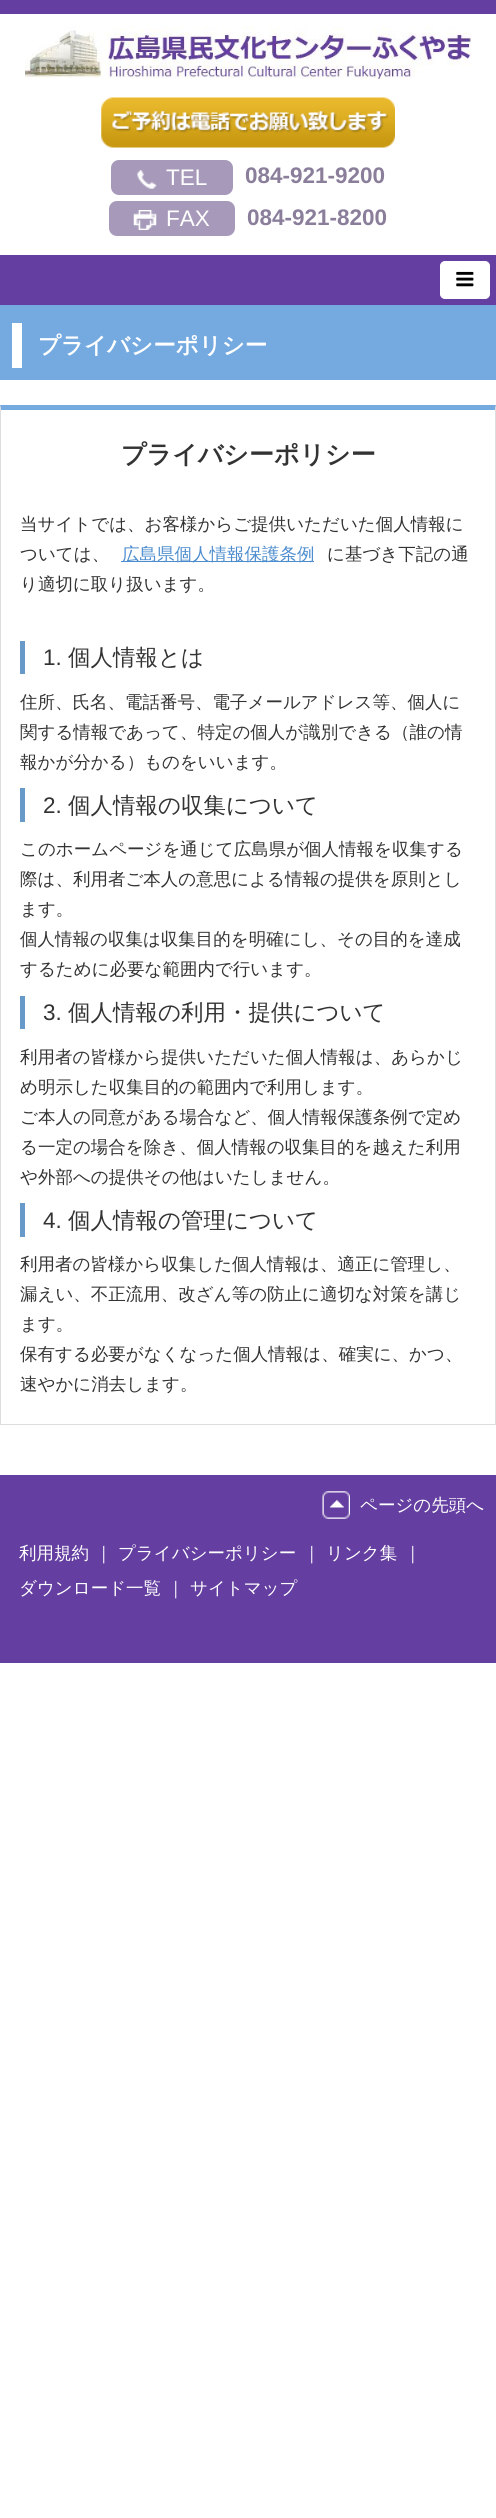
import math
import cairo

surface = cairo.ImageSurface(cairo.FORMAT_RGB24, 496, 2518)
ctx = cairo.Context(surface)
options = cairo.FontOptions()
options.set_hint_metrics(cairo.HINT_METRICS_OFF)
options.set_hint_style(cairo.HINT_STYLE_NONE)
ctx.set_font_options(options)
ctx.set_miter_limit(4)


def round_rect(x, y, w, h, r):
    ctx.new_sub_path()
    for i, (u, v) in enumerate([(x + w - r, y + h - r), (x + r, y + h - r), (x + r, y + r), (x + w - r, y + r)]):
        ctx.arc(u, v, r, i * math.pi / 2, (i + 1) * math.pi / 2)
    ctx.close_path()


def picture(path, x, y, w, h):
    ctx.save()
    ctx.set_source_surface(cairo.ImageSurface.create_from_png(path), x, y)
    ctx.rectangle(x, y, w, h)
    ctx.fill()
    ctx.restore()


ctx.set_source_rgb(1, 1, 1)
ctx.paint()
ctx.set_source_rgb(0.392, 0.243, 0.627)
ctx.rectangle(0, 0, 496, 14)
ctx.fill()
picture("img1.png", 25, 26, 446, 53)
picture("img2.png", 101, 97, 294, 51)
ctx.set_source_rgb(0.651, 0.6, 0.729)
round_rect(111, 160, 122, 35, 8)
ctx.fill()
picture("img3.png", 137, 170, 20, 19)
ctx.select_font_face("Liberation Sans")
ctx.set_font_size(22.5)
ctx.set_source_rgb(1, 1, 1)
ctx.move_to(166, 185)
ctx.show_text("TEL")
ctx.select_font_face("Liberation Sans", cairo.FONT_SLANT_NORMAL, cairo.FONT_WEIGHT_BOLD)
ctx.set_source_rgb(0.541, 0.494, 0.608)
ctx.move_to(245, 183)
ctx.show_text("084-921-9200")
ctx.set_source_rgb(0.651, 0.6, 0.729)
round_rect(109, 201, 126, 35, 8)
ctx.fill()
picture("img4.png", 133, 210, 24, 20)
ctx.select_font_face("Liberation Sans")
ctx.set_source_rgb(1, 1, 1)
ctx.move_to(166, 226)
ctx.show_text("FAX")
ctx.select_font_face("Liberation Sans", cairo.FONT_SLANT_NORMAL, cairo.FONT_WEIGHT_BOLD)
ctx.set_source_rgb(0.541, 0.494, 0.608)
ctx.move_to(247, 225)
ctx.show_text("084-921-8200")
ctx.set_source_rgb(0.392, 0.243, 0.627)
ctx.rectangle(0, 255, 496, 50)
ctx.fill()
ctx.set_source_rgb(1, 1, 1)
round_rect(440.5, 261.5, 49, 37, 4.5)
ctx.fill_preserve()
ctx.set_line_width(1)
ctx.stroke()
picture("img5.png", 456, 271, 18, 16)
ctx.set_source_rgb(0.459, 0.667, 0.878)
ctx.rectangle(0, 305, 496, 75)
ctx.fill()
ctx.set_source_rgb(1, 1, 1)
ctx.rectangle(12, 323, 10, 45)
ctx.fill()
ctx.select_font_face("WenQuanYi Zen Hei", cairo.FONT_SLANT_NORMAL, cairo.FONT_WEIGHT_BOLD)
ctx.move_to(38, 353)
ctx.show_text("プライバシーポリシー")
ctx.set_source_rgb(0.459, 0.667, 0.878)
ctx.new_path()
ctx.move_to(0, 405)
ctx.line_to(496, 405)
ctx.line_to(495, 410)
ctx.line_to(1, 410)
ctx.close_path()
ctx.fill()
ctx.set_source_rgb(0.867, 0.867, 0.867)
ctx.new_path()
ctx.move_to(496, 405)
ctx.line_to(496, 1425)
ctx.line_to(495, 1424)
ctx.line_to(495, 410)
ctx.close_path()
ctx.fill()
ctx.rectangle(0, 1424, 496, 1)
ctx.fill()
ctx.new_path()
ctx.move_to(0, 1425)
ctx.line_to(0, 405)
ctx.line_to(1, 410)
ctx.line_to(1, 1424)
ctx.close_path()
ctx.fill()
ctx.set_font_size(25)
ctx.set_source_rgb(0.2, 0.2, 0.2)
ctx.move_to(121, 463)
ctx.show_text("プライバシーポリシー")
ctx.select_font_face("WenQuanYi Zen Hei Medium")
ctx.set_font_size(17.5)
ctx.move_to(20, 530)
ctx.show_text("当サイトでは、お客様からご提供いただいた個人情報に")
ctx.move_to(20, 560)
ctx.show_text("ついては、")
ctx.set_source_rgb(0.302, 0.553, 0.808)
ctx.rectangle(121, 561, 193, 1)
ctx.fill()
ctx.move_to(122, 560)
ctx.show_text("広島県個人情報保護条例")
ctx.set_source_rgb(0.2, 0.2, 0.2)
ctx.move_to(327, 560)
ctx.show_text("に基づき下記の通")
ctx.move_to(20, 590)
ctx.show_text("り適切に取り扱います。")
ctx.set_source_rgb(0.404, 0.6, 0.788)
ctx.rectangle(20, 641, 5, 33)
ctx.fill()
ctx.select_font_face("Liberation Sans")
ctx.set_font_size(22.5)
ctx.set_source_rgb(0.2, 0.2, 0.2)
ctx.move_to(43, 665)
ctx.show_text("1.")
ctx.select_font_face("WenQuanYi Zen Hei Medium")
ctx.move_to(68, 665)
ctx.show_text("個人情報とは")
ctx.set_font_size(17.5)
ctx.move_to(20, 708)
ctx.show_text("住所、氏名、電話番号、電子メールアドレス等、個人に")
ctx.move_to(20, 738)
ctx.show_text("関する情報であって、特定の個人が識別できる（誰の情")
ctx.move_to(20, 768)
ctx.show_text("報かが分かる）ものをいいます。")
ctx.set_source_rgb(0.404, 0.6, 0.788)
ctx.rectangle(20, 788, 5, 34)
ctx.fill()
ctx.select_font_face("Liberation Sans")
ctx.set_font_size(22.5)
ctx.set_source_rgb(0.2, 0.2, 0.2)
ctx.move_to(43, 813)
ctx.show_text("2.")
ctx.select_font_face("WenQuanYi Zen Hei Medium")
ctx.move_to(68, 813)
ctx.show_text("個人情報の収集について")
ctx.set_font_size(17.5)
ctx.move_to(20, 855)
ctx.show_text("このホームページを通じて広島県が個人情報を収集する")
ctx.move_to(20, 885)
ctx.show_text("際は、利用者ご本人の意思による情報の提供を原則とし")
ctx.move_to(20, 915)
ctx.show_text("ます。")
ctx.move_to(20, 945)
ctx.show_text("個人情報の収集は収集目的を明確にし、その目的を達成")
ctx.move_to(20, 975)
ctx.show_text("するために必要な範囲内で行います。")
ctx.set_source_rgb(0.404, 0.6, 0.788)
ctx.rectangle(20, 996, 5, 33)
ctx.fill()
ctx.select_font_face("Liberation Sans")
ctx.set_font_size(22.5)
ctx.set_source_rgb(0.2, 0.2, 0.2)
ctx.move_to(43, 1020)
ctx.show_text("3.")
ctx.select_font_face("WenQuanYi Zen Hei Medium")
ctx.move_to(68, 1020)
ctx.show_text("個人情報の利用・提供について")
ctx.set_font_size(17.5)
ctx.move_to(20, 1063)
ctx.show_text("利用者の皆様から提供いただいた個人情報は、あらかじ")
ctx.move_to(20, 1093)
ctx.show_text("め明示した収集目的の範囲内で利用します。")
ctx.move_to(20, 1123)
ctx.show_text("ご本人の同意がある場合など、個人情報保護条例で定め")
ctx.move_to(20, 1153)
ctx.show_text("る一定の場合を除き、個人情報の収集目的を越えた利用")
ctx.move_to(20, 1183)
ctx.show_text("や外部への提供その他はいたしません。")
ctx.set_source_rgb(0.404, 0.6, 0.788)
ctx.rectangle(20, 1203, 5, 34)
ctx.fill()
ctx.select_font_face("Liberation Sans")
ctx.set_font_size(22.5)
ctx.set_source_rgb(0.2, 0.2, 0.2)
ctx.move_to(43, 1228)
ctx.show_text("4.")
ctx.select_font_face("WenQuanYi Zen Hei Medium")
ctx.move_to(68, 1228)
ctx.show_text("個人情報の管理について")
ctx.set_font_size(17.5)
ctx.move_to(20, 1270)
ctx.show_text("利用者の皆様から収集した個人情報は、適正に管理し、")
ctx.move_to(20, 1300)
ctx.show_text("漏えい、不正流用、改ざん等の防止に適切な対策を講じ")
ctx.move_to(20, 1330)
ctx.show_text("ます。")
ctx.move_to(20, 1360)
ctx.show_text("保有する必要がなくなった個人情報は、確実に、かつ、")
ctx.move_to(20, 1390)
ctx.show_text("速やかに消去します。")
ctx.set_source_rgb(0.392, 0.243, 0.627)
ctx.rectangle(0, 1475, 496, 188)
ctx.fill()
picture("img6.png", 322, 1491, 28, 28)
ctx.set_source_rgb(1, 1, 1)
ctx.move_to(360, 1511)
ctx.show_text("ページの先頭へ")
ctx.move_to(19, 1559)
ctx.show_text("利用規約")
ctx.move_to(95, 1559)
ctx.show_text("｜")
ctx.move_to(118, 1559)
ctx.show_text("プライバシーポリシー")
ctx.move_to(303, 1559)
ctx.show_text("｜")
ctx.move_to(326, 1559)
ctx.show_text("リンク集")
ctx.move_to(404, 1559)
ctx.show_text("｜")
ctx.move_to(19, 1594)
ctx.show_text("ダウンロード一覧")
ctx.move_to(167, 1594)
ctx.show_text("｜")
ctx.move_to(190, 1594)
ctx.show_text("サイトマップ")
surface.write_to_png("page.png")
